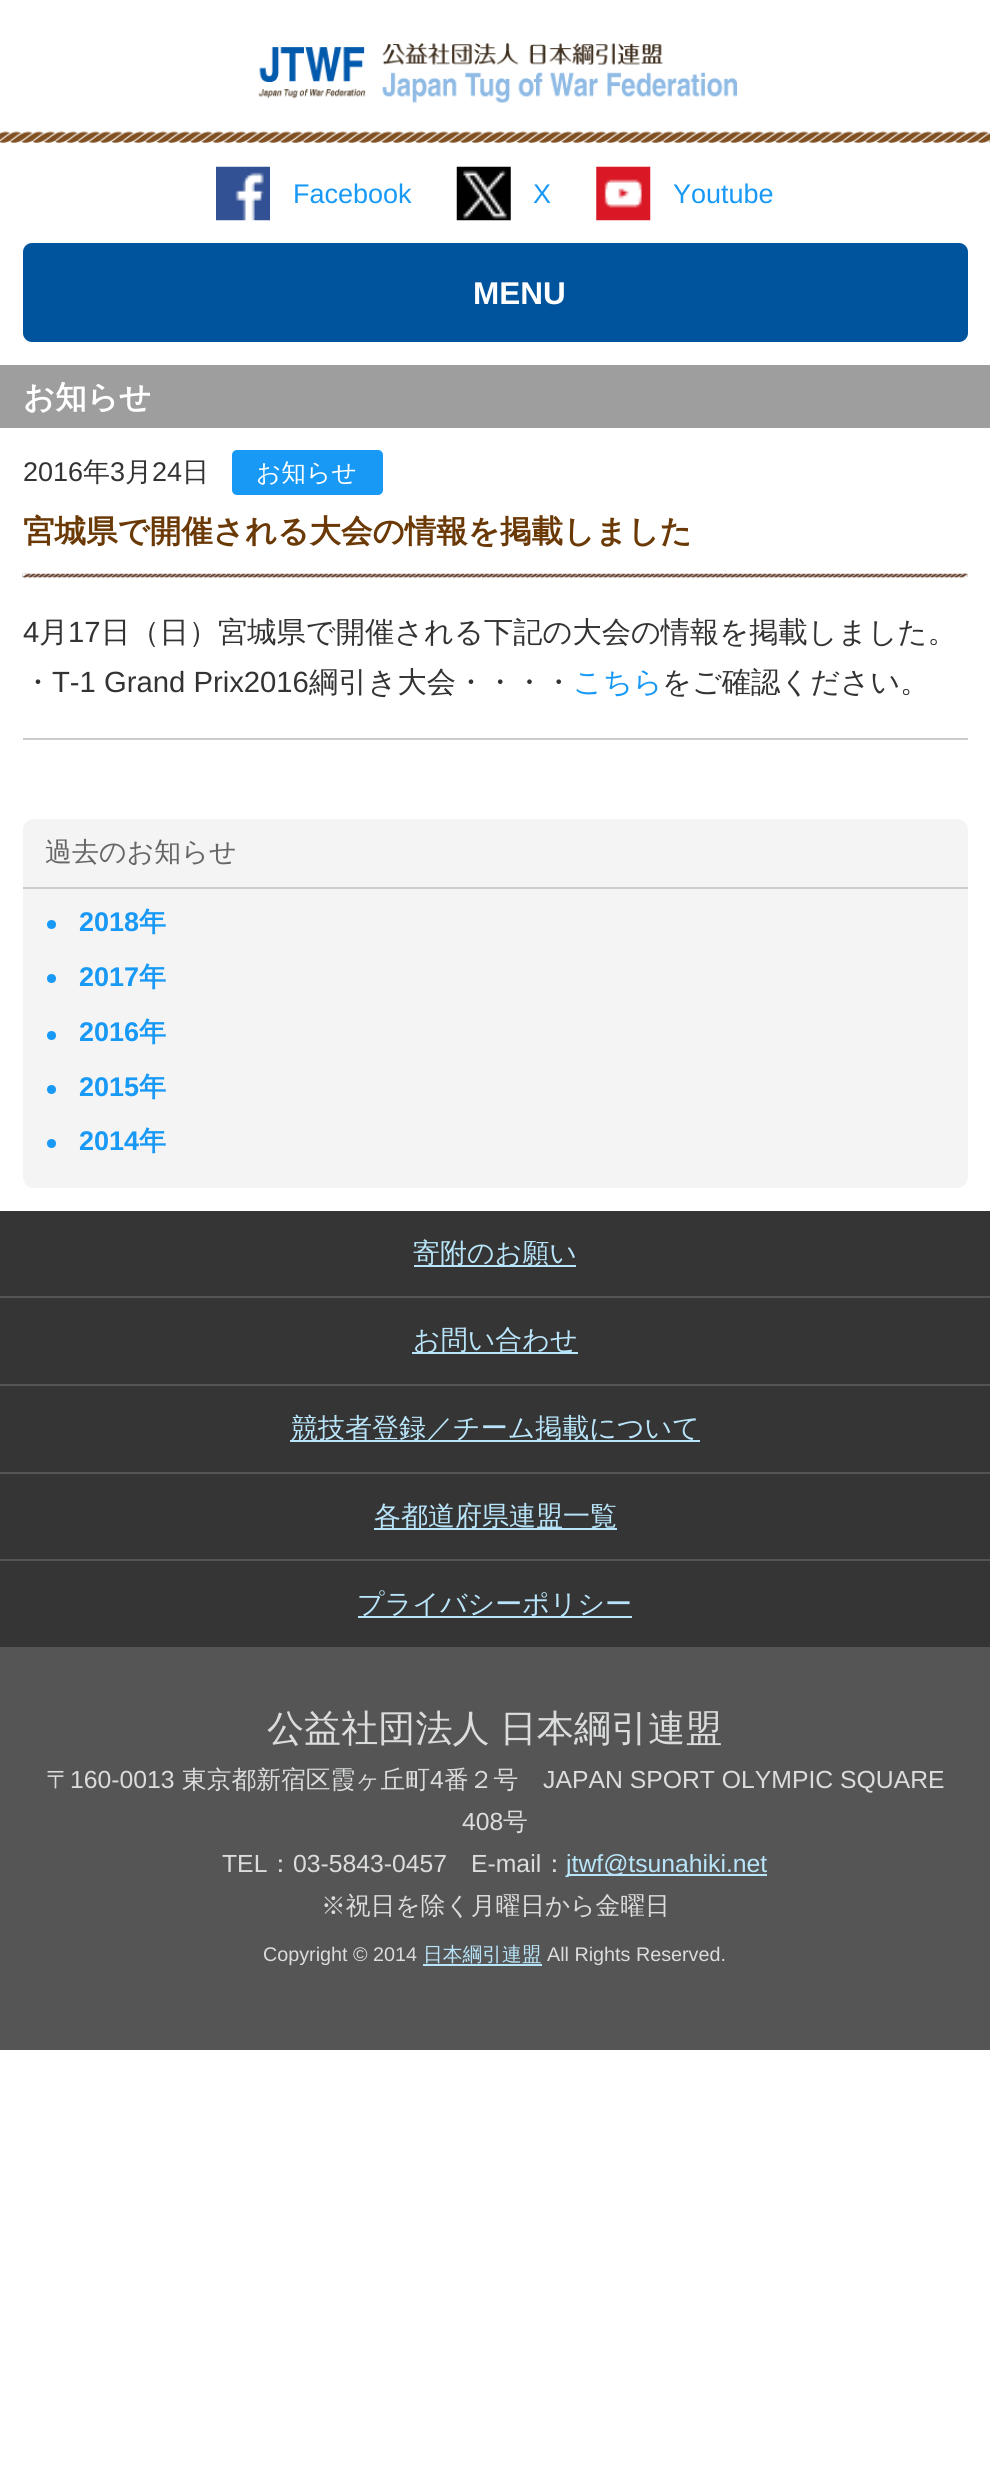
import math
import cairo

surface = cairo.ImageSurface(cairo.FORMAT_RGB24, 990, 2469)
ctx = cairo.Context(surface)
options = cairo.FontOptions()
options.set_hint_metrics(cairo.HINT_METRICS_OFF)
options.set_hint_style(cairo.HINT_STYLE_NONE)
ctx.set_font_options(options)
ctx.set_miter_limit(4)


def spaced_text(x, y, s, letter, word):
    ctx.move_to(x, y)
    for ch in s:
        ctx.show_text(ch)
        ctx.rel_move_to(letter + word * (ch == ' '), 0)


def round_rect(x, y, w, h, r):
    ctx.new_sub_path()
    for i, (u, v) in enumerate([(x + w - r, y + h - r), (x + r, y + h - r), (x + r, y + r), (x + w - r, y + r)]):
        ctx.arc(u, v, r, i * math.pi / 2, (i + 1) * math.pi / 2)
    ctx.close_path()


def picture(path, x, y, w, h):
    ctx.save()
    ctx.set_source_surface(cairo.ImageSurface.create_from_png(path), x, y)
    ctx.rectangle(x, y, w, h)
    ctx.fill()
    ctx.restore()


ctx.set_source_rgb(1, 1, 1)
ctx.paint()
picture("img1.png", 0, 131, 990, 12)
picture("img2.png", 258, 43, 479, 60)
picture("img3.png", 216, 166, 54, 55)
ctx.select_font_face("Liberation Sans")
ctx.set_font_size(27)
ctx.set_source_rgb(0.094, 0.6, 0.961)
ctx.move_to(293, 203)
ctx.show_text("Facebook")
picture("img4.png", 456, 166, 55, 55)
ctx.move_to(533, 203)
ctx.show_text("X")
picture("img5.png", 596, 166, 55, 55)
ctx.move_to(673, 203)
ctx.show_text("Youtube")
ctx.set_source_rgb(0, 0.329, 0.616)
round_rect(23, 243, 945, 99, 9)
ctx.fill()
ctx.select_font_face("Liberation Sans", cairo.FONT_SLANT_NORMAL, cairo.FONT_WEIGHT_BOLD)
ctx.set_font_size(31.5)
ctx.set_source_rgb(1, 1, 1)
ctx.move_to(473, 304)
ctx.show_text("MENU")
ctx.set_source_rgb(0.62, 0.62, 0.624)
ctx.rectangle(0, 365, 990, 63)
ctx.fill()
ctx.select_font_face("WenQuanYi Zen Hei", cairo.FONT_SLANT_NORMAL, cairo.FONT_WEIGHT_BOLD)
ctx.set_source_rgb(1, 1, 1)
ctx.move_to(23, 408)
ctx.show_text("お知らせ")
ctx.select_font_face("Liberation Sans")
ctx.set_font_size(27)
ctx.set_source_rgb(0.2, 0.2, 0.2)
ctx.move_to(23, 481)
ctx.show_text("2016")
ctx.select_font_face("WenQuanYi Zen Hei Medium")
ctx.move_to(83, 481)
ctx.show_text("年")
ctx.select_font_face("Liberation Sans")
ctx.move_to(110, 481)
ctx.show_text("3")
ctx.select_font_face("WenQuanYi Zen Hei Medium")
ctx.move_to(125, 481)
ctx.show_text("月")
ctx.select_font_face("Liberation Sans")
ctx.move_to(152, 481)
ctx.show_text("24")
ctx.select_font_face("WenQuanYi Zen Hei Medium")
ctx.move_to(182, 481)
ctx.show_text("日")
ctx.set_source_rgb(0.094, 0.6, 0.961)
round_rect(232, 450, 151, 45, 5)
ctx.fill()
ctx.set_font_size(24.75)
ctx.set_source_rgb(1, 1, 1)
ctx.move_to(256, 481)
ctx.show_text("お知らせ")
picture("img6.png", 22, 573, 946, 6)
ctx.select_font_face("WenQuanYi Zen Hei", cairo.FONT_SLANT_NORMAL, cairo.FONT_WEIGHT_BOLD)
ctx.set_font_size(31.5)
ctx.set_source_rgb(0.416, 0.224, 0.024)
ctx.move_to(23, 542)
ctx.show_text("宮城県で開催される大会の情報を掲載しました")
picture("img7.png", 22, 573, 5, 6)
picture("img8.png", 963, 573, 5, 5)
ctx.set_source_rgb(0.8, 0.8, 0.8)
ctx.rectangle(23, 738, 945, 2)
ctx.fill()
ctx.select_font_face("Liberation Sans")
ctx.set_font_size(29.25)
ctx.set_source_rgb(0.2, 0.2, 0.2)
ctx.move_to(23, 642)
ctx.show_text("4")
ctx.select_font_face("WenQuanYi Zen Hei Medium")
ctx.move_to(39, 642)
ctx.show_text("月")
ctx.select_font_face("Liberation Sans")
ctx.move_to(68, 642)
ctx.show_text("17")
ctx.select_font_face("WenQuanYi Zen Hei Medium")
ctx.move_to(101, 642)
ctx.show_text("日（日）宮城県で開催される下記の大会の情報を掲載しました。")
ctx.move_to(23, 692)
ctx.show_text("・")
ctx.select_font_face("Liberation Sans")
ctx.move_to(52, 692)
ctx.show_text("T-1 Grand Prix2016")
ctx.select_font_face("WenQuanYi Zen Hei Medium")
ctx.move_to(309, 692)
ctx.show_text("綱引き大会・・・・")
ctx.set_source_rgb(0.094, 0.6, 0.961)
ctx.move_to(573, 692)
ctx.show_text("こちら")
ctx.set_source_rgb(0.2, 0.2, 0.2)
ctx.move_to(662, 692)
ctx.show_text("をご確認ください。")
ctx.set_source_rgb(0.957, 0.957, 0.957)
round_rect(23, 819, 945, 369, 11)
ctx.fill()
ctx.set_source_rgb(0.8, 0.8, 0.8)
ctx.rectangle(23, 887, 945, 2)
ctx.fill()
ctx.set_font_size(27)
ctx.set_source_rgb(0.4, 0.4, 0.4)
ctx.move_to(45, 861)
ctx.show_text("過去のお知らせ")
ctx.set_source_rgb(0.094, 0.6, 0.961)
ctx.new_path()
ctx.arc(51.5, 924.5, 4.5, 0, 2 * math.pi)
ctx.fill()
ctx.select_font_face("Liberation Sans", cairo.FONT_SLANT_NORMAL, cairo.FONT_WEIGHT_BOLD)
ctx.move_to(79, 931)
ctx.show_text("2018")
ctx.select_font_face("WenQuanYi Zen Hei", cairo.FONT_SLANT_NORMAL, cairo.FONT_WEIGHT_BOLD)
ctx.move_to(139, 931)
ctx.show_text("年")
ctx.new_path()
ctx.arc(51.5, 978.5, 4.5, 0, 2 * math.pi)
ctx.fill()
ctx.select_font_face("Liberation Sans", cairo.FONT_SLANT_NORMAL, cairo.FONT_WEIGHT_BOLD)
ctx.move_to(79, 986)
ctx.show_text("2017")
ctx.select_font_face("WenQuanYi Zen Hei", cairo.FONT_SLANT_NORMAL, cairo.FONT_WEIGHT_BOLD)
ctx.move_to(139, 986)
ctx.show_text("年")
ctx.new_path()
ctx.arc(51.5, 1035.5, 4.5, 0, 2 * math.pi)
ctx.fill()
ctx.select_font_face("Liberation Sans", cairo.FONT_SLANT_NORMAL, cairo.FONT_WEIGHT_BOLD)
ctx.move_to(79, 1041)
ctx.show_text("2016")
ctx.select_font_face("WenQuanYi Zen Hei", cairo.FONT_SLANT_NORMAL, cairo.FONT_WEIGHT_BOLD)
ctx.move_to(139, 1041)
ctx.show_text("年")
ctx.new_path()
ctx.arc(51.5, 1089.5, 4.5, 0, 2 * math.pi)
ctx.fill()
ctx.select_font_face("Liberation Sans", cairo.FONT_SLANT_NORMAL, cairo.FONT_WEIGHT_BOLD)
ctx.move_to(79, 1096)
ctx.show_text("2015")
ctx.select_font_face("WenQuanYi Zen Hei", cairo.FONT_SLANT_NORMAL, cairo.FONT_WEIGHT_BOLD)
ctx.move_to(139, 1096)
ctx.show_text("年")
ctx.new_path()
ctx.arc(51.5, 1143.5, 4.5, 0, 2 * math.pi)
ctx.fill()
ctx.select_font_face("Liberation Sans", cairo.FONT_SLANT_NORMAL, cairo.FONT_WEIGHT_BOLD)
ctx.move_to(79, 1150)
ctx.show_text("2014")
ctx.select_font_face("WenQuanYi Zen Hei", cairo.FONT_SLANT_NORMAL, cairo.FONT_WEIGHT_BOLD)
ctx.move_to(139, 1150)
ctx.show_text("年")
ctx.set_source_rgb(0.208, 0.208, 0.208)
ctx.rectangle(0, 1211, 990, 436)
ctx.fill()
ctx.set_source_rgb(0.333, 0.333, 0.333)
ctx.rectangle(0, 1296, 990, 2)
ctx.fill()
ctx.set_source_rgb(0.725, 0.898, 0.98)
ctx.rectangle(414, 1265, 162, 2)
ctx.fill()
ctx.select_font_face("WenQuanYi Zen Hei Medium")
ctx.move_to(413, 1262)
ctx.show_text("寄附のお願い")
ctx.set_source_rgb(0.333, 0.333, 0.333)
ctx.rectangle(0, 1384, 990, 2)
ctx.fill()
ctx.set_source_rgb(0.725, 0.898, 0.98)
ctx.rectangle(412, 1352, 166, 2)
ctx.fill()
ctx.move_to(413, 1349)
ctx.show_text("お問い合わせ")
ctx.set_source_rgb(0.333, 0.333, 0.333)
ctx.rectangle(0, 1472, 990, 2)
ctx.fill()
ctx.set_source_rgb(0.725, 0.898, 0.98)
ctx.rectangle(290, 1440, 410, 2)
ctx.fill()
ctx.move_to(291, 1437)
ctx.show_text("競技者登録／チーム掲載について")
ctx.set_source_rgb(0.333, 0.333, 0.333)
ctx.rectangle(0, 1559, 990, 2)
ctx.fill()
ctx.set_source_rgb(0.725, 0.898, 0.98)
ctx.rectangle(374, 1528, 243, 2)
ctx.fill()
ctx.move_to(374, 1525)
ctx.show_text("各都道府県連盟一覧")
ctx.rectangle(358, 1616, 274, 2)
ctx.fill()
ctx.move_to(357, 1613)
ctx.show_text("プライバシーポリシー")
ctx.set_source_rgb(0.333, 0.333, 0.333)
ctx.rectangle(0, 1647, 990, 403)
ctx.fill()
ctx.set_font_size(37.1)
ctx.set_source_rgb(0.859, 0.863, 0.863)
spaced_text(267, 1741, "公益社団法人 日本綱引連盟", 0, -1)
ctx.set_font_size(24.75)
ctx.move_to(46, 1788)
ctx.show_text("〒")
ctx.select_font_face("Liberation Sans")
ctx.move_to(70, 1788)
ctx.show_text("160-0013")
ctx.select_font_face("WenQuanYi Zen Hei Medium")
ctx.move_to(182, 1788)
ctx.show_text("東京都新宿区霞ヶ丘町")
ctx.select_font_face("Liberation Sans")
ctx.move_to(430, 1788)
ctx.show_text("4")
ctx.select_font_face("WenQuanYi Zen Hei Medium")
ctx.move_to(444, 1788)
ctx.show_text("番２号")
ctx.select_font_face("Liberation Sans")
ctx.move_to(543, 1788)
ctx.show_text("JAPAN SPORT OLYMPIC SQUARE")
ctx.move_to(462, 1830)
ctx.show_text("408")
ctx.select_font_face("WenQuanYi Zen Hei Medium")
ctx.move_to(503, 1830)
ctx.show_text("号")
ctx.select_font_face("Liberation Sans")
ctx.move_to(222, 1872)
ctx.show_text("TEL")
ctx.select_font_face("WenQuanYi Zen Hei Medium")
ctx.move_to(268, 1872)
ctx.show_text("：")
ctx.select_font_face("Liberation Sans")
ctx.move_to(293, 1872)
ctx.show_text("03-5843-0457")
ctx.move_to(471, 1872)
ctx.show_text("E-mail")
ctx.select_font_face("WenQuanYi Zen Hei Medium")
ctx.move_to(542, 1872)
ctx.show_text("：")
ctx.set_source_rgb(0.725, 0.898, 0.98)
ctx.rectangle(567, 1874, 200, 2)
ctx.fill()
ctx.select_font_face("Liberation Sans")
ctx.move_to(566, 1872)
ctx.show_text("jtwf@tsunahiki.net")
ctx.select_font_face("WenQuanYi Zen Hei Medium")
ctx.set_source_rgb(0.859, 0.863, 0.863)
ctx.move_to(321, 1914)
ctx.show_text("※祝日を除く月曜日から金曜日")
ctx.select_font_face("Liberation Sans")
ctx.set_font_size(19.75)
ctx.move_to(263, 1961)
ctx.show_text("Copyright © 2014")
ctx.select_font_face("WenQuanYi Zen Hei Medium")
ctx.set_source_rgb(0.725, 0.898, 0.98)
ctx.move_to(423, 1961)
ctx.show_text("日本綱引連盟")
ctx.rectangle(423, 1964, 119, 2)
ctx.fill()
ctx.select_font_face("Liberation Sans")
ctx.set_source_rgb(0.859, 0.863, 0.863)
ctx.move_to(547, 1961)
ctx.show_text("All Rights Reserved.")
surface.write_to_png("page.png")
